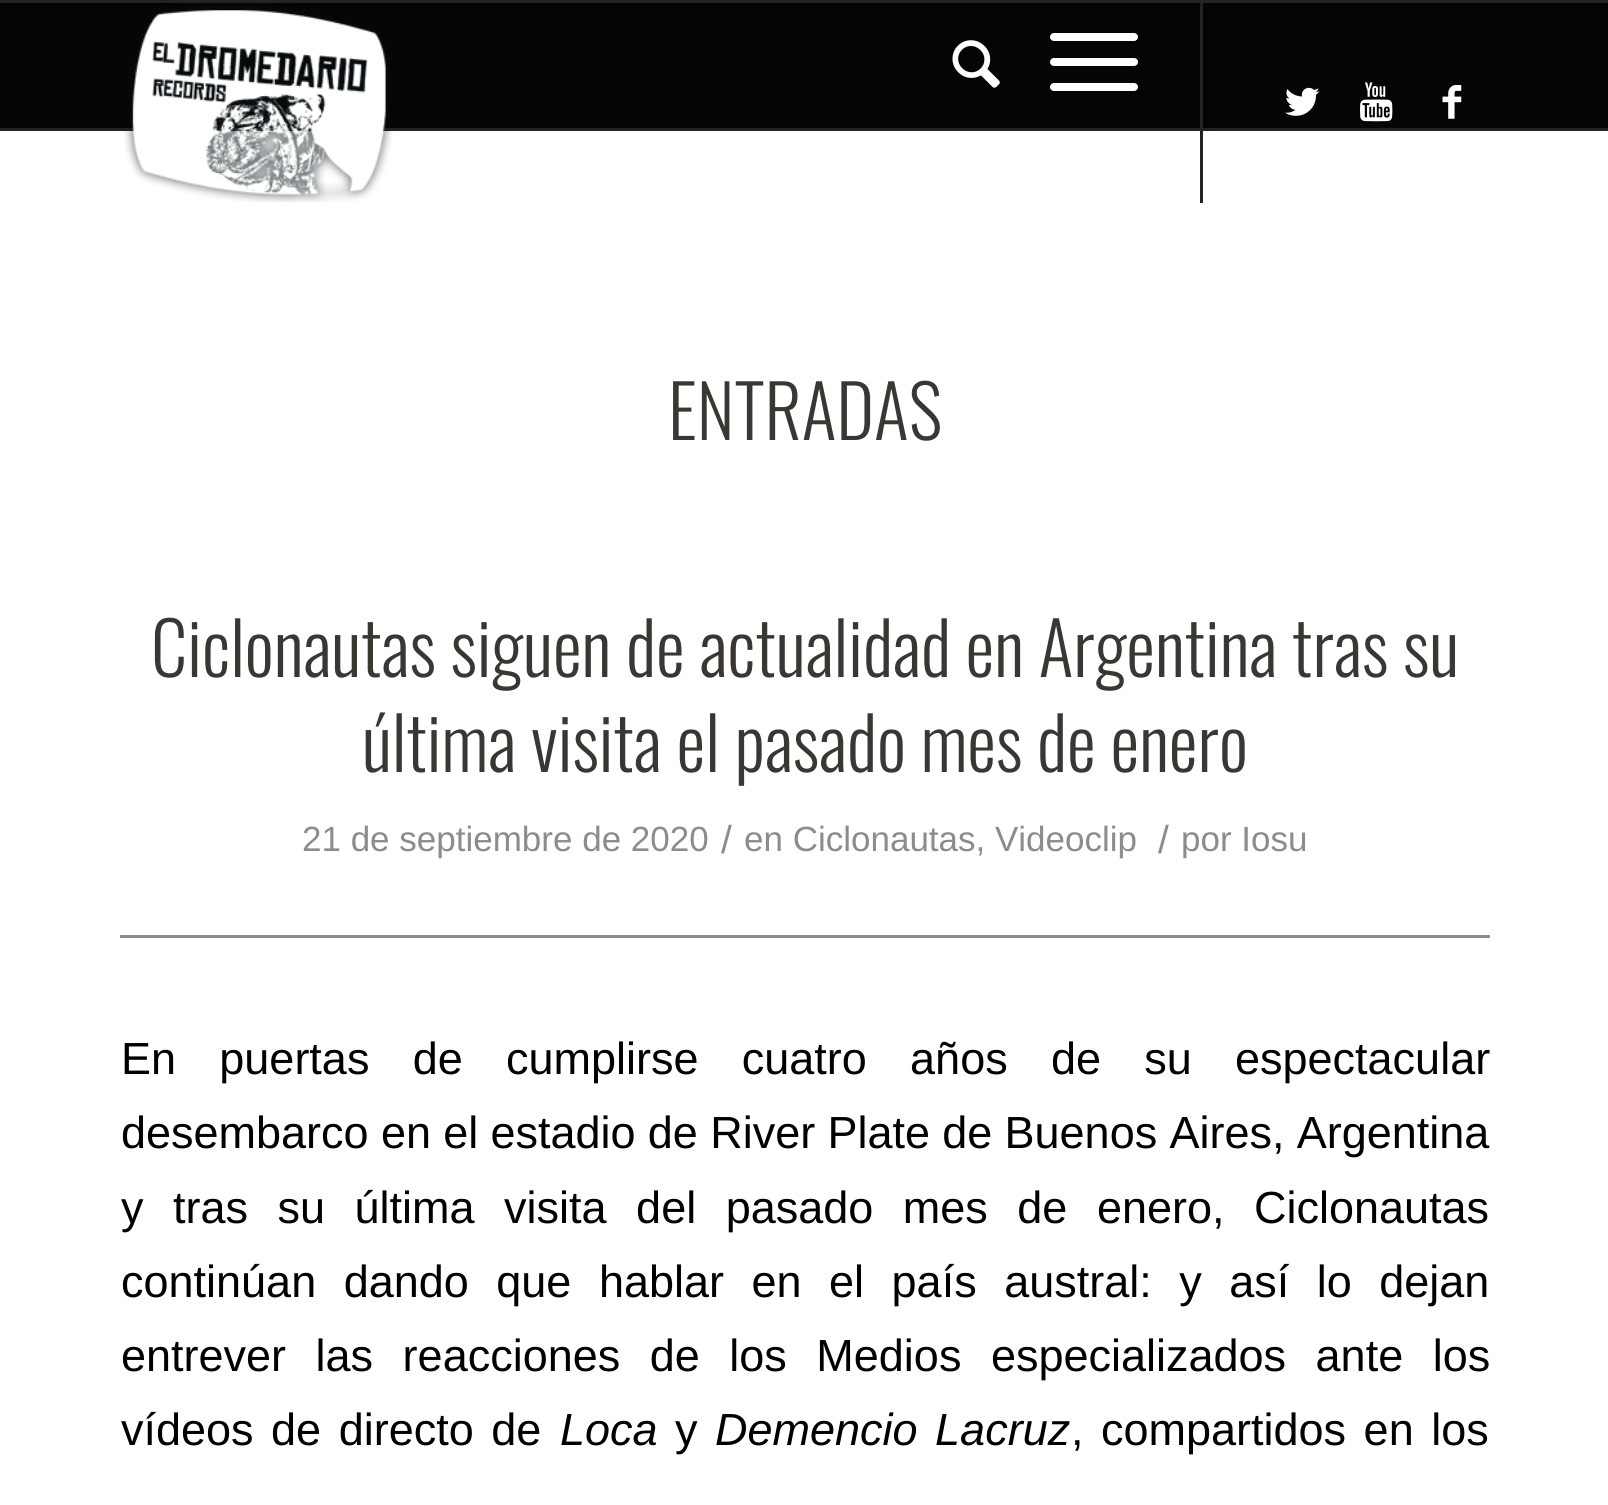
import math
import cairo

surface = cairo.ImageSurface(cairo.FORMAT_RGB24, 1608, 1505)
ctx = cairo.Context(surface)
options = cairo.FontOptions()
options.set_hint_metrics(cairo.HINT_METRICS_OFF)
options.set_hint_style(cairo.HINT_STYLE_NONE)
ctx.set_font_options(options)
ctx.set_miter_limit(4)


def spaced_text(x, y, s, letter, word):
    ctx.move_to(x, y)
    for ch in s:
        ctx.show_text(ch)
        ctx.rel_move_to(letter + word * (ch == ' '), 0)


def round_rect(x, y, w, h, r):
    ctx.new_sub_path()
    for i, (u, v) in enumerate([(x + w - r, y + h - r), (x + r, y + h - r), (x + r, y + r), (x + w - r, y + r)]):
        ctx.arc(u, v, r, i * math.pi / 2, (i + 1) * math.pi / 2)
    ctx.close_path()


def picture(path, x, y, w, h):
    ctx.save()
    ctx.set_source_surface(cairo.ImageSurface.create_from_png(path), x, y)
    ctx.rectangle(x, y, w, h)
    ctx.fill()
    ctx.restore()


ctx.set_source_rgb(1, 1, 1)
ctx.paint()
ctx.set_source_rgb(0.141, 0.137, 0.125)
ctx.rectangle(0, 0, 1608, 3)
ctx.fill()
ctx.rectangle(0, 128, 1608, 3)
ctx.fill()
ctx.set_source_rgb(0.02, 0.02, 0.02)
ctx.rectangle(0, 3, 1608, 125)
ctx.fill()
picture("img1.png", 124, 7, 269, 195)
ctx.set_source_rgb(0.141, 0.137, 0.125)
ctx.rectangle(1200, 3, 3, 200)
ctx.fill()
picture("img2.png", 952, 40, 48, 48)
ctx.set_source_rgb(1, 1, 1)
round_rect(1050, 58, 88, 8, 4)
ctx.fill()
round_rect(1050, 33, 88, 8, 4)
ctx.fill()
round_rect(1050, 83, 88, 8, 4)
ctx.fill()
picture("img3.png", 1285, 87, 35, 29)
picture("img4.png", 1360, 82, 33, 40)
picture("img5.png", 1442, 85, 20, 34)
ctx.select_font_face("Oswald Light")
ctx.set_font_size(72.5)
ctx.set_source_rgb(0.227, 0.216, 0.2)
ctx.move_to(668, 440)
ctx.show_text("ENTRADAS")
ctx.set_source_rgb(0.557, 0.541, 0.525)
ctx.rectangle(120, 935, 1370, 3)
ctx.fill()
ctx.set_source_rgb(0.227, 0.216, 0.2)
ctx.move_to(151, 677)
ctx.show_text("Ciclonautas siguen de actualidad en Argentina tras su")
ctx.move_to(362, 772)
ctx.show_text("última visita el pasado mes de enero")
ctx.select_font_face("Liberation Sans")
ctx.set_font_size(35)
ctx.set_source_rgb(0.549, 0.549, 0.549)
ctx.move_to(302, 851)
ctx.show_text("21 de septiembre de 2020")
ctx.set_font_size(39)
ctx.move_to(721, 853)
ctx.show_text("/")
ctx.set_font_size(35)
ctx.move_to(744, 851)
ctx.show_text("en Ciclonautas, Videoclip")
ctx.set_font_size(39)
ctx.move_to(1158, 853)
ctx.show_text("/")
ctx.set_font_size(35)
ctx.move_to(1181, 851)
ctx.show_text("por Iosu")
ctx.set_font_size(45)
ctx.set_source_rgb(0, 0, 0)
spaced_text(121, 1074, "En puertas de cumplirse cuatro años de su espectacular", 0, 30.75)
spaced_text(121, 1148, "desembarco en el estadio de River Plate de Buenos Aires, Argentina", 0, -0.25)
spaced_text(121, 1223, "y tras su última visita del pasado mes de enero, Ciclonautas", 0, 17)
spaced_text(121, 1297, "continúan dando que hablar en el país austral: y así lo dejan", 0, 15)
spaced_text(121, 1371, "entrever las reacciones de los Medios especializados ante los", 0, 17)
spaced_text(121, 1445, "vídeos de directo de", 0, 5)
ctx.select_font_face("Liberation Sans", cairo.FONT_SLANT_ITALIC)
ctx.move_to(560, 1445)
ctx.show_text("Loca")
ctx.select_font_face("Liberation Sans")
ctx.move_to(675, 1445)
ctx.show_text("y")
ctx.select_font_face("Liberation Sans", cairo.FONT_SLANT_ITALIC)
spaced_text(715, 1445, "Demencio Lacruz", 0, 5)
ctx.select_font_face("Liberation Sans")
spaced_text(1071, 1445, ", compartidos en los", 0, 5)
surface.write_to_png("page.png")
